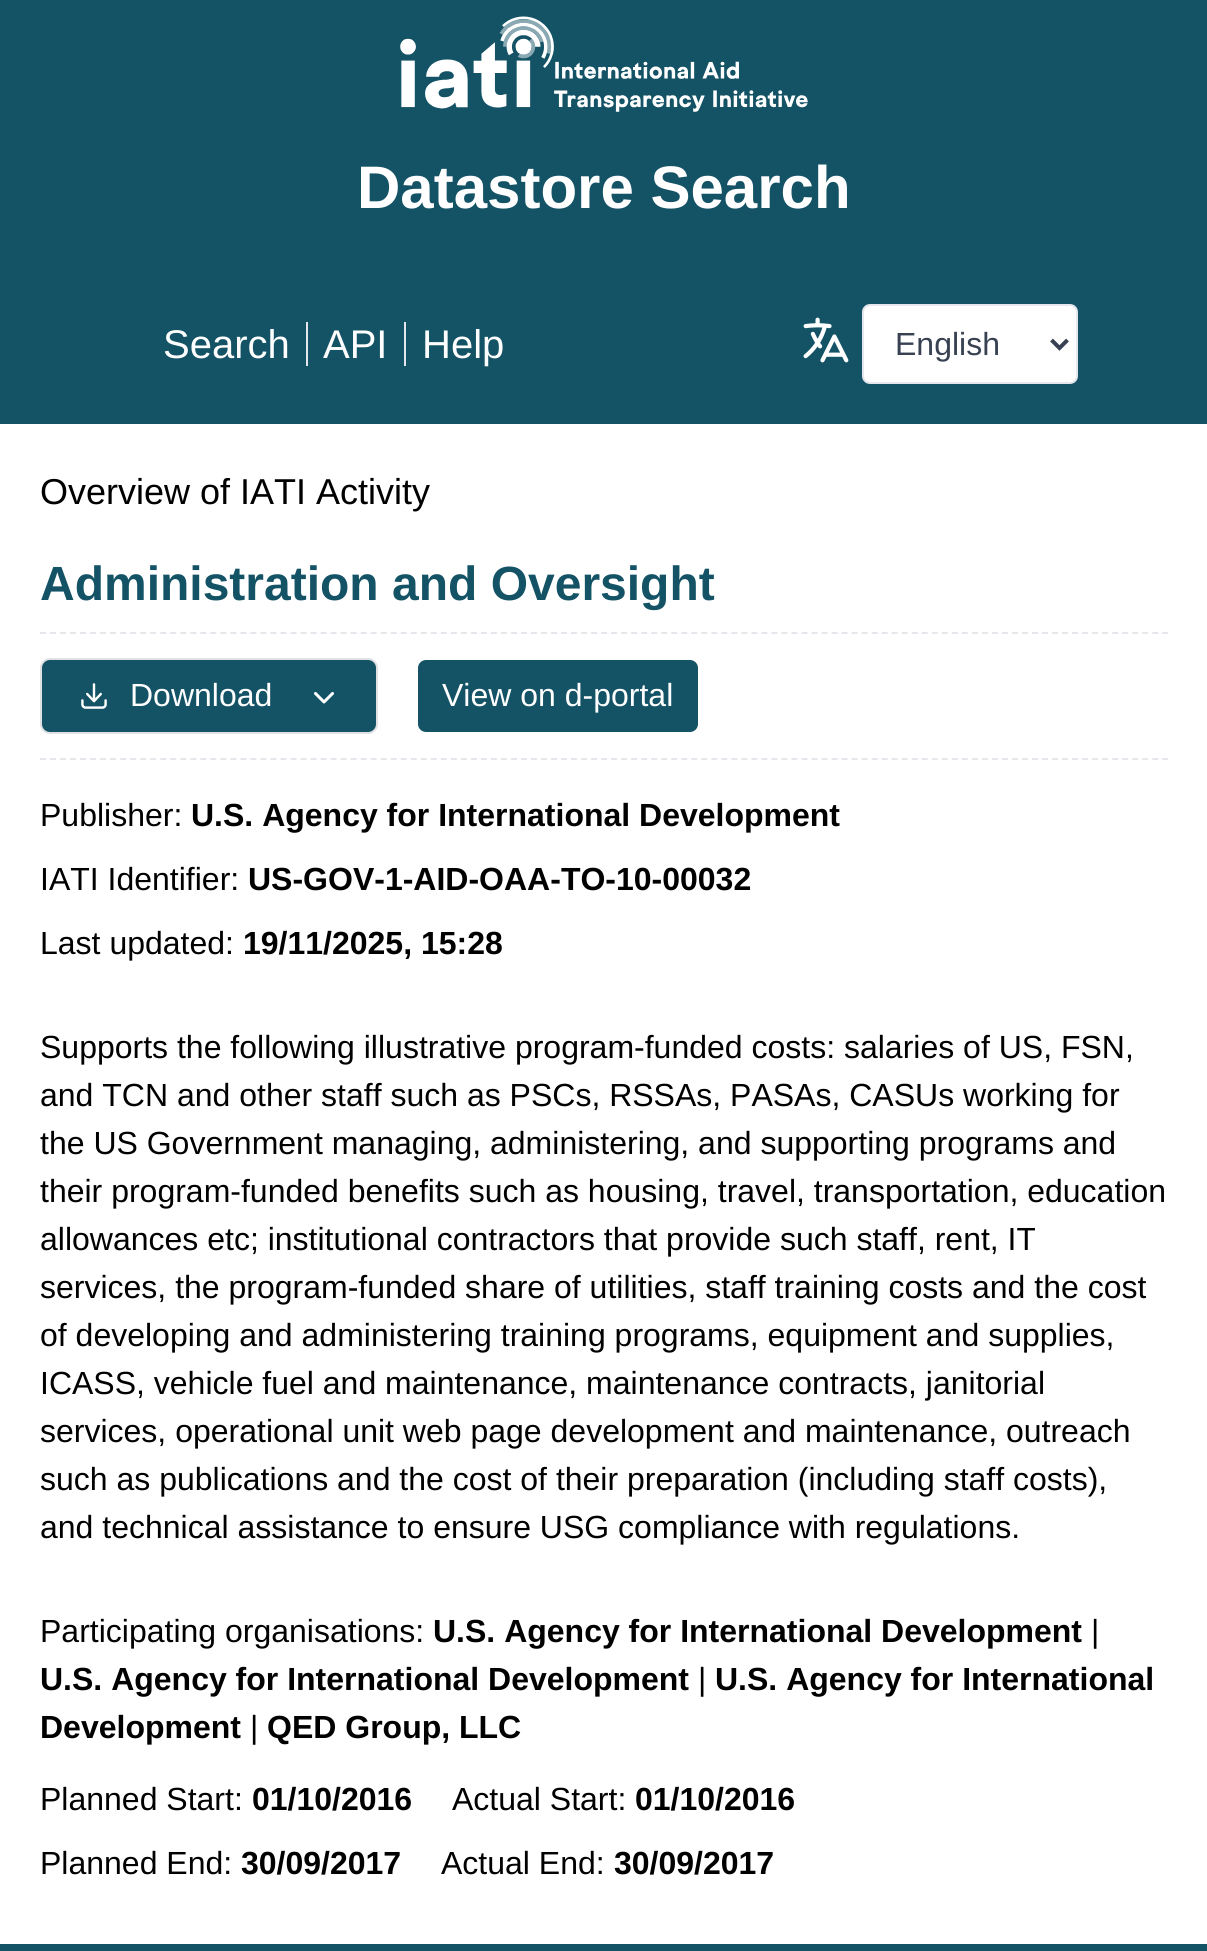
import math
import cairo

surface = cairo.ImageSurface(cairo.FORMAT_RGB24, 1207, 1951)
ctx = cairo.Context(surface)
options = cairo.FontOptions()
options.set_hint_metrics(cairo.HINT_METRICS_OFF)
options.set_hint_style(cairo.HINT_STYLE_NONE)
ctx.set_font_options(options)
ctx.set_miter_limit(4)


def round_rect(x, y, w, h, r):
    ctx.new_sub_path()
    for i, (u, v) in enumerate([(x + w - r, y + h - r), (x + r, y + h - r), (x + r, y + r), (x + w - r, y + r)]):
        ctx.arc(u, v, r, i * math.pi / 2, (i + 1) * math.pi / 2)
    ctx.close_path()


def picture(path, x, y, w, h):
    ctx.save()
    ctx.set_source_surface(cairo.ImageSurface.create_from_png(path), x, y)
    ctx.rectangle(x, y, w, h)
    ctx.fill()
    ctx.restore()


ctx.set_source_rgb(1, 1, 1)
ctx.paint()
ctx.set_source_rgb(0.082, 0.325, 0.4)
ctx.rectangle(0, 0, 1207, 424)
ctx.fill()
picture("img1.png", 400, 16, 408, 96)
ctx.select_font_face("Liberation Sans", cairo.FONT_SLANT_NORMAL, cairo.FONT_WEIGHT_BOLD)
ctx.set_font_size(60)
ctx.set_source_rgb(1, 1, 1)
ctx.move_to(357, 208)
ctx.show_text("Datastore Search")
ctx.select_font_face("Liberation Sans")
ctx.set_font_size(40)
ctx.move_to(163, 358)
ctx.show_text("Search")
ctx.move_to(323, 358)
ctx.show_text("API")
ctx.set_source_rgb(0.898, 0.906, 0.922)
ctx.rectangle(306, 322, 2, 44)
ctx.fill()
ctx.set_source_rgb(1, 1, 1)
ctx.move_to(422, 358)
ctx.show_text("Help")
ctx.set_source_rgb(0.898, 0.906, 0.922)
ctx.rectangle(404, 322, 2, 44)
ctx.fill()
picture("img2.png", 803, 317, 46, 46)
ctx.set_source_rgb(1, 1, 1)
round_rect(863, 305, 214, 78, 7)
ctx.fill_preserve()
ctx.set_source_rgb(0.898, 0.906, 0.922)
ctx.stroke()
ctx.new_path()
ctx.move_to(1051.5, 340)
ctx.line_to(1059.5, 348)
ctx.line_to(1067.5, 340)
ctx.set_source_rgb(0.216, 0.255, 0.318)
ctx.set_line_width(4)
ctx.stroke()
ctx.set_font_size(32)
ctx.move_to(895, 355)
ctx.show_text("English")
ctx.set_font_size(36)
ctx.set_source_rgb(0, 0, 0)
ctx.move_to(40, 504)
ctx.show_text("Overview of IATI Activity")
ctx.new_path()
ctx.move_to(40, 633)
ctx.line_to(1168, 633)
ctx.set_source_rgb(0.898, 0.906, 0.922)
ctx.set_line_width(2)
ctx.set_dash([6, 4.02])
ctx.stroke()
ctx.select_font_face("Liberation Sans", cairo.FONT_SLANT_NORMAL, cairo.FONT_WEIGHT_BOLD)
ctx.set_font_size(48)
ctx.set_source_rgb(0.082, 0.325, 0.4)
ctx.move_to(40, 600)
ctx.show_text("Administration and Oversight")
ctx.new_path()
ctx.move_to(40, 759)
ctx.line_to(1168, 759)
ctx.set_source_rgb(0.898, 0.906, 0.922)
ctx.stroke()
ctx.set_source_rgb(0.082, 0.325, 0.4)
round_rect(41, 659, 336, 74, 9)
ctx.fill_preserve()
ctx.set_source_rgb(0.878, 0.882, 0.886)
ctx.set_dash([])
ctx.stroke()
picture("img3.png", 81, 683, 26, 26)
ctx.select_font_face("Liberation Sans")
ctx.set_font_size(32)
ctx.set_source_rgb(1, 1, 1)
ctx.move_to(130, 706)
ctx.show_text("Download")
picture("img4.png", 314, 692, 20, 12)
ctx.set_source_rgb(0.082, 0.325, 0.4)
round_rect(418, 660, 280, 72, 8)
ctx.fill()
ctx.set_source_rgb(1, 1, 1)
ctx.move_to(442, 706)
ctx.show_text("View on d-portal")
ctx.set_source_rgb(0, 0, 0)
ctx.move_to(40, 826)
ctx.show_text("Publisher:")
ctx.select_font_face("Liberation Sans", cairo.FONT_SLANT_NORMAL, cairo.FONT_WEIGHT_BOLD)
ctx.move_to(191, 826)
ctx.show_text("U.S. Agency for International Development")
ctx.select_font_face("Liberation Sans")
ctx.move_to(40, 890)
ctx.show_text("IATI Identifier:")
ctx.select_font_face("Liberation Sans", cairo.FONT_SLANT_NORMAL, cairo.FONT_WEIGHT_BOLD)
ctx.move_to(248, 890)
ctx.show_text("US-GOV-1-AID-OAA-TO-10-00032")
ctx.select_font_face("Liberation Sans")
ctx.move_to(40, 954)
ctx.show_text("Last updated:")
ctx.select_font_face("Liberation Sans", cairo.FONT_SLANT_NORMAL, cairo.FONT_WEIGHT_BOLD)
ctx.move_to(243, 954)
ctx.show_text("19/11/2025, 15:28")
ctx.select_font_face("Liberation Sans")
ctx.move_to(40, 1058)
ctx.show_text("Supports the following illustrative program-funded costs: salaries of US, FSN,")
ctx.move_to(40, 1106)
ctx.show_text("and TCN and other staff such as PSCs, RSSAs, PASAs, CASUs working for")
ctx.move_to(40, 1154)
ctx.show_text("the US Government managing, administering, and supporting programs and")
ctx.move_to(40, 1202)
ctx.show_text("their program-funded benefits such as housing, travel, transportation, education")
ctx.move_to(40, 1250)
ctx.show_text("allowances etc; institutional contractors that provide such staff, rent, IT")
ctx.move_to(40, 1298)
ctx.show_text("services, the program-funded share of utilities, staff training costs and the cost")
ctx.move_to(40, 1346)
ctx.show_text("of developing and administering training programs, equipment and supplies,")
ctx.move_to(40, 1394)
ctx.show_text("ICASS, vehicle fuel and maintenance, maintenance contracts, janitorial")
ctx.move_to(40, 1442)
ctx.show_text("services, operational unit web page development and maintenance, outreach")
ctx.move_to(40, 1490)
ctx.show_text("such as publications and the cost of their preparation (including staff costs),")
ctx.move_to(40, 1538)
ctx.show_text("and technical assistance to ensure USG compliance with regulations.")
ctx.move_to(40, 1642)
ctx.show_text("Participating organisations:")
ctx.select_font_face("Liberation Sans", cairo.FONT_SLANT_NORMAL, cairo.FONT_WEIGHT_BOLD)
ctx.move_to(433, 1642)
ctx.show_text("U.S. Agency for International Development")
ctx.select_font_face("Liberation Sans")
ctx.move_to(1091, 1642)
ctx.show_text("|")
ctx.select_font_face("Liberation Sans", cairo.FONT_SLANT_NORMAL, cairo.FONT_WEIGHT_BOLD)
ctx.move_to(40, 1690)
ctx.show_text("U.S. Agency for International Development")
ctx.select_font_face("Liberation Sans")
ctx.move_to(698, 1690)
ctx.show_text("|")
ctx.select_font_face("Liberation Sans", cairo.FONT_SLANT_NORMAL, cairo.FONT_WEIGHT_BOLD)
ctx.move_to(715, 1690)
ctx.show_text("U.S. Agency for International")
ctx.move_to(40, 1738)
ctx.show_text("Development")
ctx.select_font_face("Liberation Sans")
ctx.move_to(250, 1738)
ctx.show_text("|")
ctx.select_font_face("Liberation Sans", cairo.FONT_SLANT_NORMAL, cairo.FONT_WEIGHT_BOLD)
ctx.move_to(267, 1738)
ctx.show_text("QED Group, LLC")
ctx.select_font_face("Liberation Sans")
ctx.move_to(40, 1810)
ctx.show_text("Planned Start:")
ctx.select_font_face("Liberation Sans", cairo.FONT_SLANT_NORMAL, cairo.FONT_WEIGHT_BOLD)
ctx.move_to(252, 1810)
ctx.show_text("01/10/2016")
ctx.select_font_face("Liberation Sans")
ctx.move_to(452, 1810)
ctx.show_text("Actual Start:")
ctx.select_font_face("Liberation Sans", cairo.FONT_SLANT_NORMAL, cairo.FONT_WEIGHT_BOLD)
ctx.move_to(635, 1810)
ctx.show_text("01/10/2016")
ctx.select_font_face("Liberation Sans")
ctx.move_to(40, 1874)
ctx.show_text("Planned End:")
ctx.select_font_face("Liberation Sans", cairo.FONT_SLANT_NORMAL, cairo.FONT_WEIGHT_BOLD)
ctx.move_to(241, 1874)
ctx.show_text("30/09/2017")
ctx.select_font_face("Liberation Sans")
ctx.move_to(441, 1874)
ctx.show_text("Actual End:")
ctx.select_font_face("Liberation Sans", cairo.FONT_SLANT_NORMAL, cairo.FONT_WEIGHT_BOLD)
ctx.move_to(614, 1874)
ctx.show_text("30/09/2017")
ctx.set_source_rgb(0.082, 0.325, 0.4)
ctx.rectangle(0, 1944, 1207, 7)
ctx.fill()
surface.write_to_png("page.png")
